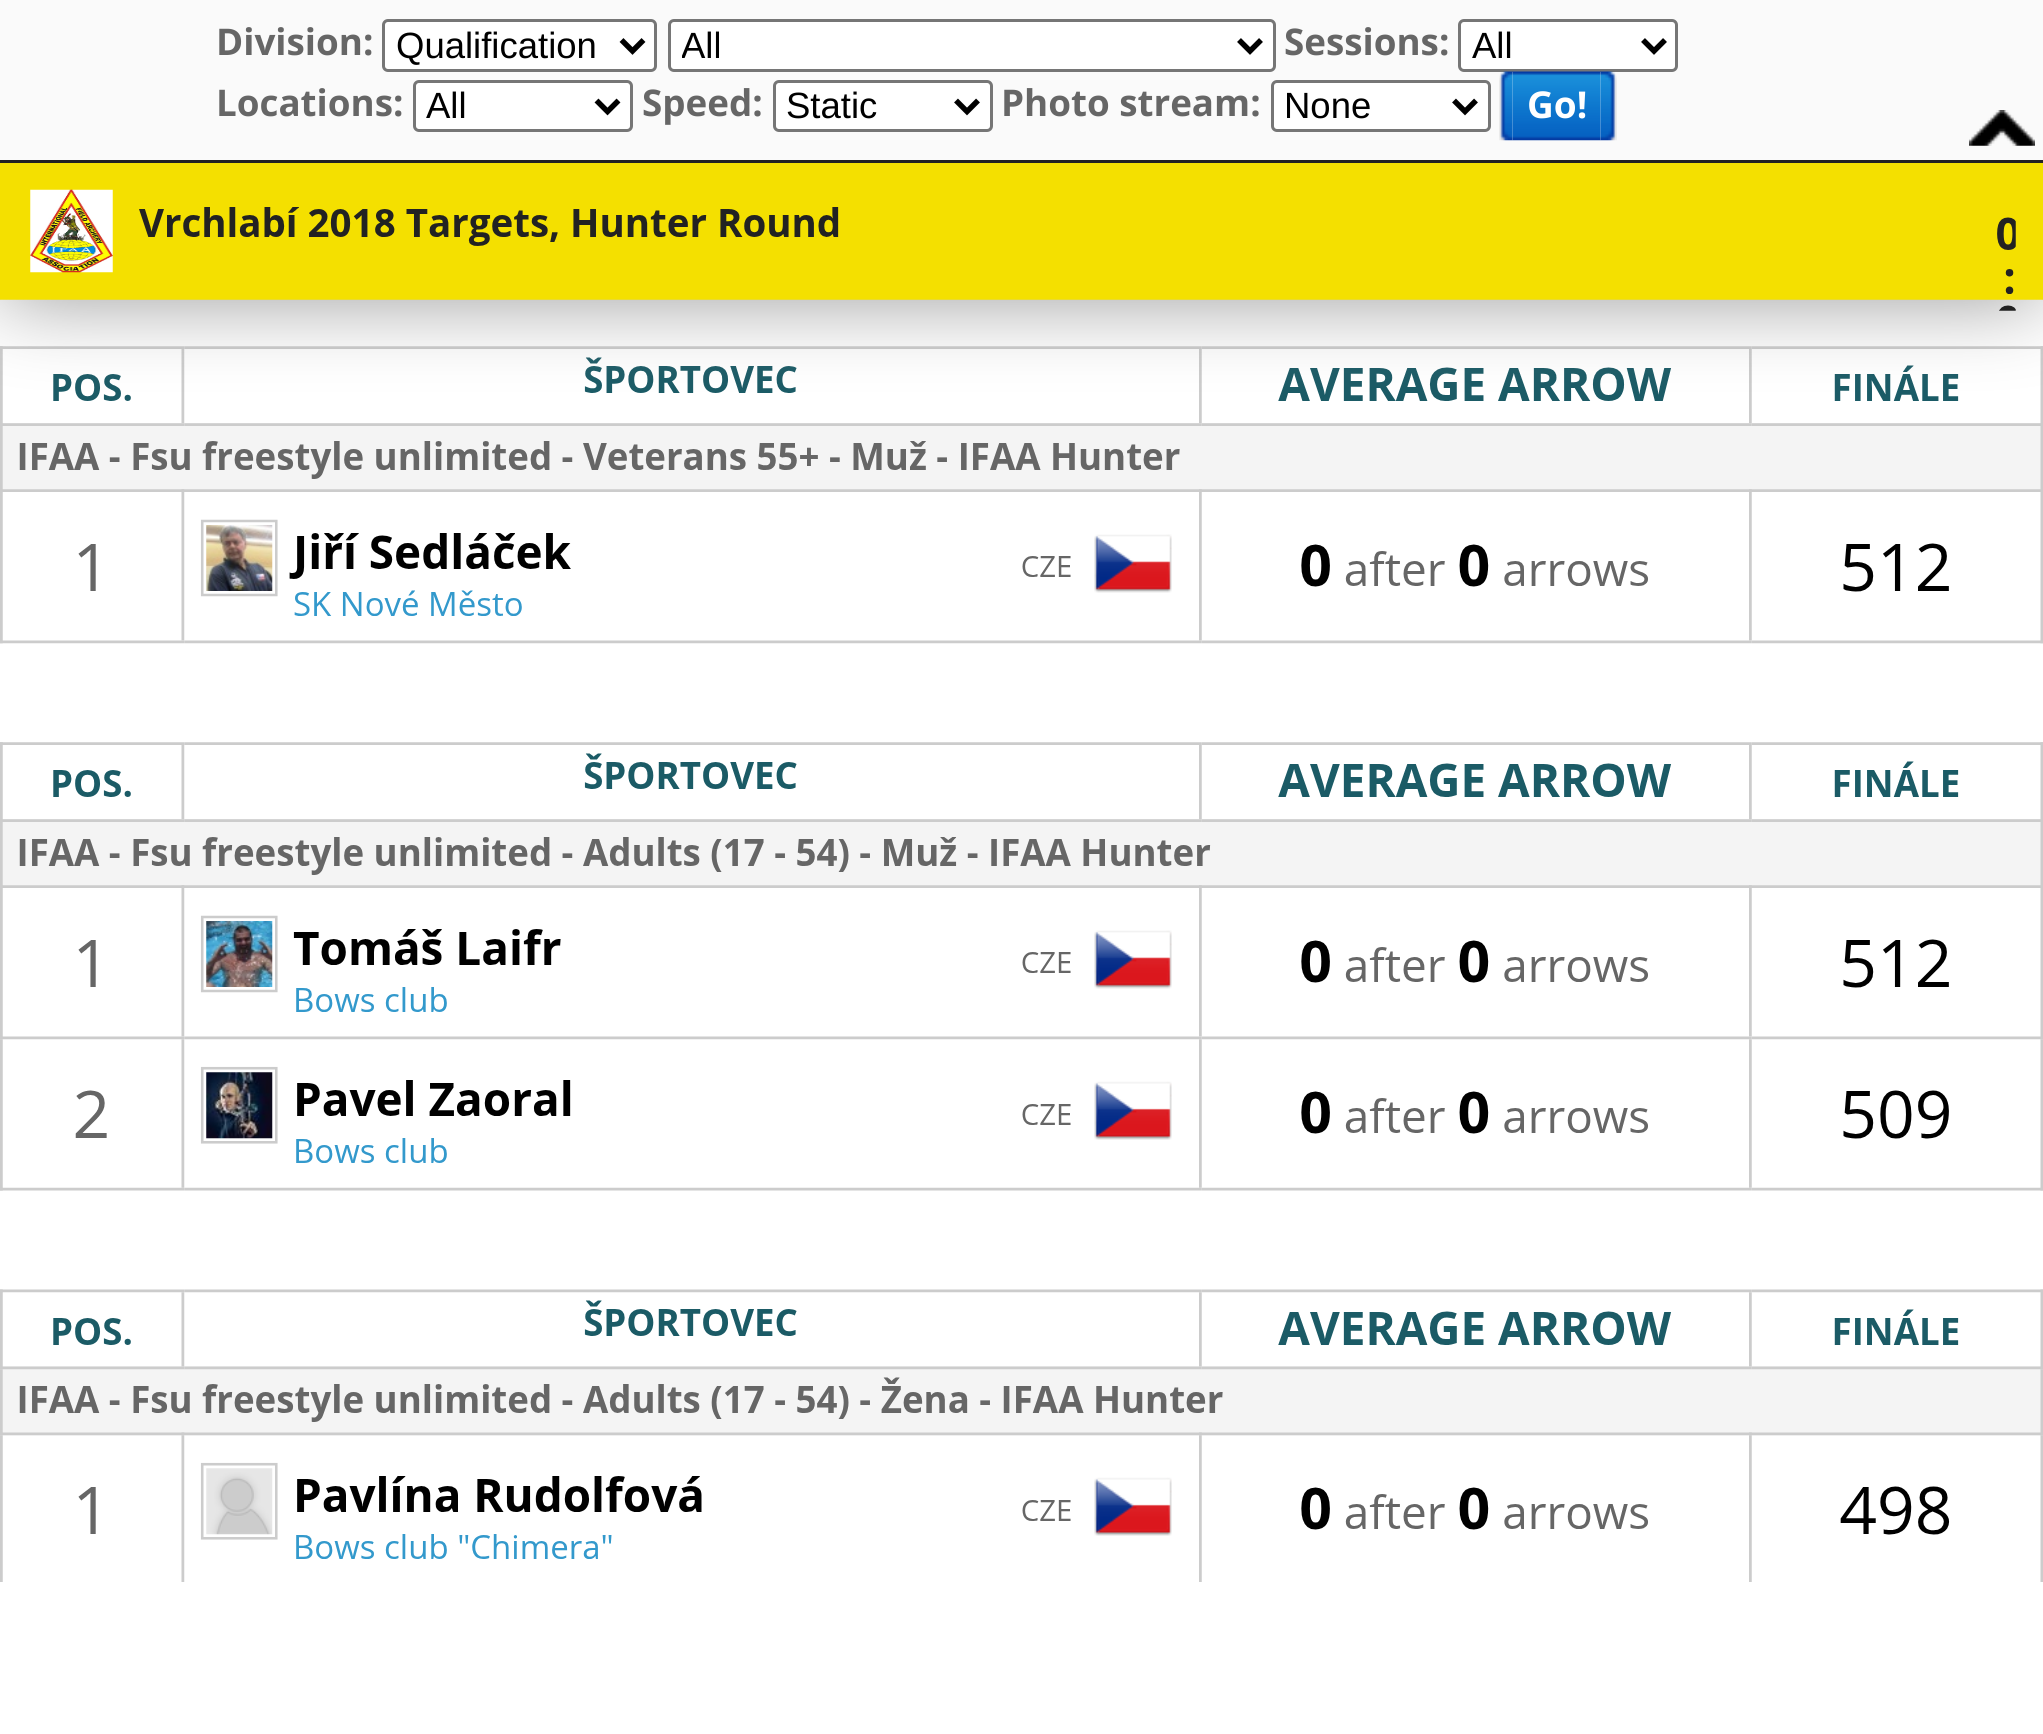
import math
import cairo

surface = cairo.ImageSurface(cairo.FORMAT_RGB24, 2043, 1734)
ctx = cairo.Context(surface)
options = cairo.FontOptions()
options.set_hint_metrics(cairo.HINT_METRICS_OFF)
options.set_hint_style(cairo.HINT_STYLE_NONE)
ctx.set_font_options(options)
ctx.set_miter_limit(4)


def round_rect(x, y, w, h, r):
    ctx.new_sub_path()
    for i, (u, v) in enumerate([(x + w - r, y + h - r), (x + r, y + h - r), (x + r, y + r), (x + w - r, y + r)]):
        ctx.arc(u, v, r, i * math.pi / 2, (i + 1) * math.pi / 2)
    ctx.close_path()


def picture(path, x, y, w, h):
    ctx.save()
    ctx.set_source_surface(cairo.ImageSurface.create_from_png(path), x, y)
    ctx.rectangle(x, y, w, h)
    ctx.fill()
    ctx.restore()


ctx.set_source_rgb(1, 1, 1)
ctx.paint()
ctx.set_source_rgb(0.98, 0.98, 0.98)
ctx.rectangle(0, 0, 2043, 160)
ctx.fill()
ctx.set_source_rgb(0.133, 0.133, 0.133)
ctx.rectangle(0, 160, 2043, 3)
ctx.fill()
ctx.select_font_face("Open Sans", cairo.FONT_SLANT_NORMAL, cairo.FONT_WEIGHT_BOLD)
ctx.set_font_size(36.75)
ctx.set_source_rgb(0.4, 0.4, 0.4)
ctx.move_to(216, 55)
ctx.show_text("Division:")
ctx.set_source_rgb(1, 1, 1)
round_rect(383.5, 20.5, 272, 50, 4.5)
ctx.fill_preserve()
ctx.set_source_rgb(0.463, 0.463, 0.463)
ctx.set_line_width(3)
ctx.stroke()
ctx.new_path()
ctx.move_to(621.5, 40)
ctx.line_to(632.5, 51)
ctx.line_to(643.5, 40)
ctx.set_source_rgb(0, 0, 0)
ctx.set_line_width(5.5)
ctx.stroke()
ctx.select_font_face("Liberation Sans")
ctx.set_font_size(36.5)
ctx.move_to(396, 58)
ctx.show_text("Qualification")
ctx.set_source_rgb(1, 1, 1)
round_rect(669.5, 20.5, 605, 50, 4.5)
ctx.fill_preserve()
ctx.set_source_rgb(0.463, 0.463, 0.463)
ctx.set_line_width(3)
ctx.stroke()
ctx.new_path()
ctx.move_to(1239, 40)
ctx.line_to(1250, 51)
ctx.line_to(1261, 40)
ctx.set_source_rgb(0, 0, 0)
ctx.set_line_width(5.5)
ctx.stroke()
ctx.save()
ctx.rectangle(682, 22, 547, 47)
ctx.clip()
ctx.move_to(681, 58)
ctx.show_text("All")
ctx.restore()
ctx.select_font_face("Open Sans", cairo.FONT_SLANT_NORMAL, cairo.FONT_WEIGHT_BOLD)
ctx.set_font_size(36.75)
ctx.set_source_rgb(0.4, 0.4, 0.4)
ctx.move_to(1284, 55)
ctx.show_text("Sessions:")
ctx.set_source_rgb(1, 1, 1)
round_rect(1459.5, 20.5, 217, 50, 4.5)
ctx.fill_preserve()
ctx.set_source_rgb(0.463, 0.463, 0.463)
ctx.set_line_width(3)
ctx.stroke()
ctx.new_path()
ctx.move_to(1643, 40)
ctx.line_to(1654, 51)
ctx.line_to(1665, 40)
ctx.set_source_rgb(0, 0, 0)
ctx.set_line_width(5.5)
ctx.stroke()
ctx.select_font_face("Liberation Sans")
ctx.set_font_size(36.5)
ctx.move_to(1472, 58)
ctx.show_text("All")
ctx.select_font_face("Open Sans", cairo.FONT_SLANT_NORMAL, cairo.FONT_WEIGHT_BOLD)
ctx.set_font_size(36.75)
ctx.set_source_rgb(0.4, 0.4, 0.4)
ctx.move_to(216, 116)
ctx.show_text("Locations:")
ctx.set_source_rgb(1, 1, 1)
round_rect(414.5, 81.5, 217, 49, 4.5)
ctx.fill_preserve()
ctx.set_source_rgb(0.463, 0.463, 0.463)
ctx.set_line_width(3)
ctx.stroke()
ctx.new_path()
ctx.move_to(596.5, 100.5)
ctx.line_to(607.5, 111.5)
ctx.line_to(618.5, 100.5)
ctx.set_source_rgb(0, 0, 0)
ctx.set_line_width(5.5)
ctx.stroke()
ctx.select_font_face("Liberation Sans")
ctx.set_font_size(36.5)
ctx.move_to(426, 118)
ctx.show_text("All")
ctx.select_font_face("Open Sans", cairo.FONT_SLANT_NORMAL, cairo.FONT_WEIGHT_BOLD)
ctx.set_font_size(36.75)
ctx.set_source_rgb(0.4, 0.4, 0.4)
ctx.move_to(642, 116)
ctx.show_text("Speed:")
ctx.set_source_rgb(1, 1, 1)
round_rect(774.5, 81.5, 217, 49, 4.5)
ctx.fill_preserve()
ctx.set_source_rgb(0.463, 0.463, 0.463)
ctx.set_line_width(3)
ctx.stroke()
ctx.new_path()
ctx.move_to(956, 100.5)
ctx.line_to(967, 111.5)
ctx.line_to(978, 100.5)
ctx.set_source_rgb(0, 0, 0)
ctx.set_line_width(5.5)
ctx.stroke()
ctx.select_font_face("Liberation Sans")
ctx.set_font_size(36.5)
ctx.move_to(786, 118)
ctx.show_text("Static")
ctx.select_font_face("Open Sans", cairo.FONT_SLANT_NORMAL, cairo.FONT_WEIGHT_BOLD)
ctx.set_font_size(36.75)
ctx.set_source_rgb(0.4, 0.4, 0.4)
ctx.move_to(1001, 116)
ctx.show_text("Photo stream:")
ctx.set_source_rgb(1, 1, 1)
round_rect(1272.5, 81.5, 217, 49, 4.5)
ctx.fill_preserve()
ctx.set_source_rgb(0.463, 0.463, 0.463)
ctx.set_line_width(3)
ctx.stroke()
ctx.new_path()
ctx.move_to(1454, 100.5)
ctx.line_to(1465, 111.5)
ctx.line_to(1476, 100.5)
ctx.set_source_rgb(0, 0, 0)
ctx.set_line_width(5.5)
ctx.stroke()
ctx.select_font_face("Liberation Sans")
ctx.set_font_size(36.5)
ctx.move_to(1284, 118)
ctx.show_text("None")
picture("img1.png", 1499, 71, 14, 70)
picture("img2.png", 1512, 71, 89, 70)
ctx.select_font_face("Open Sans", cairo.FONT_SLANT_NORMAL, cairo.FONT_WEIGHT_BOLD)
ctx.set_font_size(37)
ctx.set_source_rgb(1, 1, 1)
ctx.move_to(1527, 118)
ctx.show_text("Go!")
picture("img3.png", 1600, 71, 17, 70)
picture("img4.png", 1969, 110, 66, 36)
picture("img5.png", 0, 163, 2043, 1419)
surface.write_to_png("page.png")
